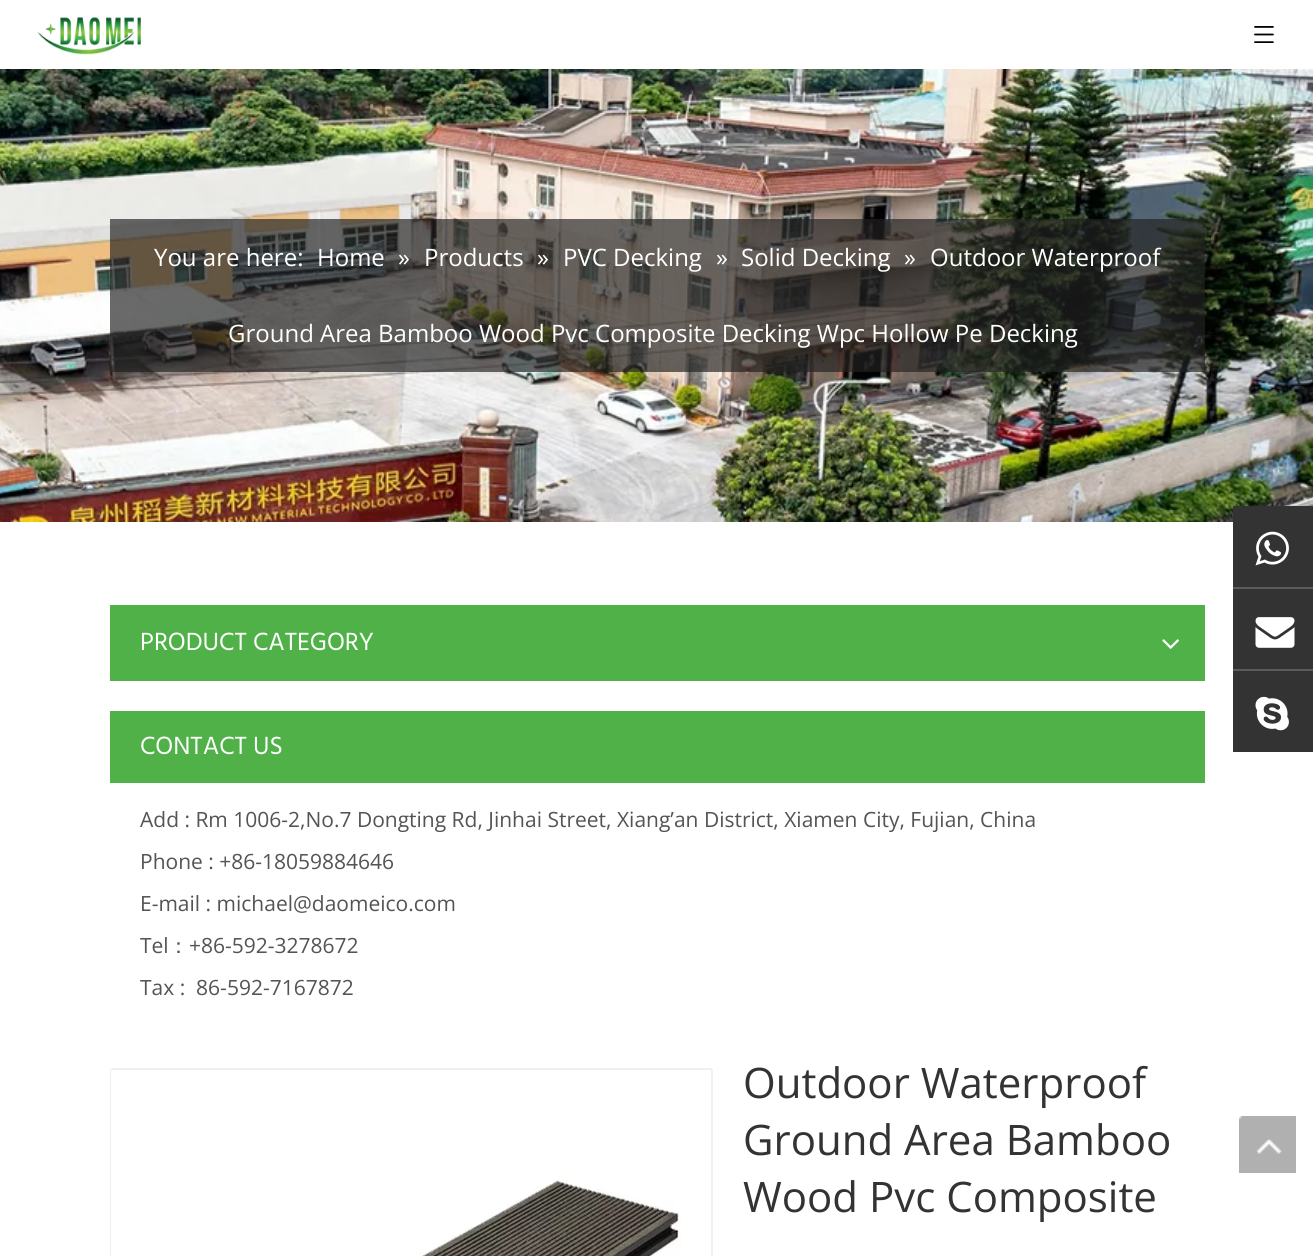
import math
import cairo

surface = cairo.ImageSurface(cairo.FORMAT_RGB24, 1313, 1256)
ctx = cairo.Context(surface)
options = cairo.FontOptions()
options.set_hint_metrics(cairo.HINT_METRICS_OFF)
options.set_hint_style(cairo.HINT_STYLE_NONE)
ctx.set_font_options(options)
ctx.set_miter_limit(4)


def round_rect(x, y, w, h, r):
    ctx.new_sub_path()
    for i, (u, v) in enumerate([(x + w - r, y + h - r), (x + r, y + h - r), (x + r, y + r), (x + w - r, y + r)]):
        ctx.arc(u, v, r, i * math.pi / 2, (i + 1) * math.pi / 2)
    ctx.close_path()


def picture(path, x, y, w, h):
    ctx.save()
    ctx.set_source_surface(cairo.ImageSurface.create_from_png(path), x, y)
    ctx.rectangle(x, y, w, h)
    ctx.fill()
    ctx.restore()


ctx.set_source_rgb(1, 1, 1)
ctx.paint()
picture("img1.png", 37, 17, 104, 38)
picture("img2.png", 1254, 26, 20, 17)
picture("img3.png", 0, 69, 1313, 453)
ctx.set_source_rgba(0.133, 0.133, 0.133, 0.67)
ctx.rectangle(110, 219, 1095, 153)
ctx.fill()
ctx.select_font_face("Open Sans")
ctx.set_font_size(24)
ctx.set_source_rgb(1, 1, 1)
ctx.move_to(154, 266)
ctx.show_text("You are here:")
ctx.move_to(317, 266)
ctx.show_text("Home")
ctx.move_to(398, 266)
ctx.show_text("»")
ctx.move_to(424, 266)
ctx.show_text("Products")
ctx.move_to(537, 266)
ctx.show_text("»")
ctx.move_to(563, 266)
ctx.show_text("PVC Decking")
ctx.move_to(716, 266)
ctx.show_text("»")
ctx.move_to(741, 266)
ctx.show_text("Solid Decking")
ctx.move_to(904, 266)
ctx.show_text("»")
ctx.move_to(930, 266)
ctx.show_text("Outdoor Waterproof")
ctx.move_to(228, 342)
ctx.show_text("Ground Area Bamboo Wood Pvc Composite Decking Wpc Hollow Pe Decking")
ctx.set_source_rgb(0.31, 0.694, 0.282)
ctx.rectangle(110, 605, 1095, 76)
ctx.fill()
ctx.select_font_face("Hind Madurai")
ctx.set_font_size(25.5)
ctx.set_source_rgb(1, 1, 1)
ctx.move_to(140, 650)
ctx.show_text("PRODUCT CATEGORY")
picture("img4.png", 1162, 639, 17, 10)
ctx.set_source_rgb(0.31, 0.694, 0.282)
ctx.rectangle(110, 711, 1095, 72)
ctx.fill()
ctx.set_source_rgb(1, 1, 1)
ctx.move_to(140, 754)
ctx.show_text("CONTACT US")
ctx.select_font_face("Open Sans")
ctx.set_font_size(21)
ctx.set_source_rgb(0.329, 0.329, 0.329)
ctx.move_to(140, 827)
ctx.show_text("Add : Rm 1006-2,No.7 Dongting Rd, Jinhai Street, Xiang’an District, Xiamen City, Fujian, China")
ctx.move_to(140, 869)
ctx.show_text("Phone : +86-18059884646")
ctx.move_to(140, 911)
ctx.show_text("E-mail : michael@daomeico.com")
ctx.move_to(140, 953)
ctx.show_text("Tel")
ctx.select_font_face("WenQuanYi Zen Hei Medium")
ctx.move_to(168, 953)
ctx.show_text("：")
ctx.select_font_face("Open Sans")
ctx.move_to(189, 953)
ctx.show_text("+86-592-3278672")
ctx.move_to(140, 995)
ctx.show_text("Tax :  86-592-7167872")
round_rect(111, 1069, 601, 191, 2)
ctx.set_source_rgb(0.937, 0.937, 0.937)
ctx.stroke()
picture("img5.png", 111, 1070, 570, 186)
ctx.set_font_size(42)
ctx.set_source_rgb(0.2, 0.2, 0.2)
ctx.move_to(743, 1098)
ctx.show_text("Outdoor Waterproof")
ctx.move_to(743, 1155)
ctx.show_text("Ground Area Bamboo")
ctx.move_to(743, 1212)
ctx.show_text("Wood Pvc Composite")
ctx.rectangle(1233, 506, 80, 246)
ctx.fill()
ctx.set_source_rgb(0.361, 0.361, 0.361)
ctx.rectangle(1233, 587, 80, 2)
ctx.fill()
picture("img6.png", 1255, 531, 34, 35)
ctx.rectangle(1233, 669, 80, 2)
ctx.fill()
picture("img7.png", 1255, 617, 40, 31)
picture("img8.png", 1255, 696, 34, 35)
picture("img9.png", 1239, 1116, 57, 57)
surface.write_to_png("page.png")
